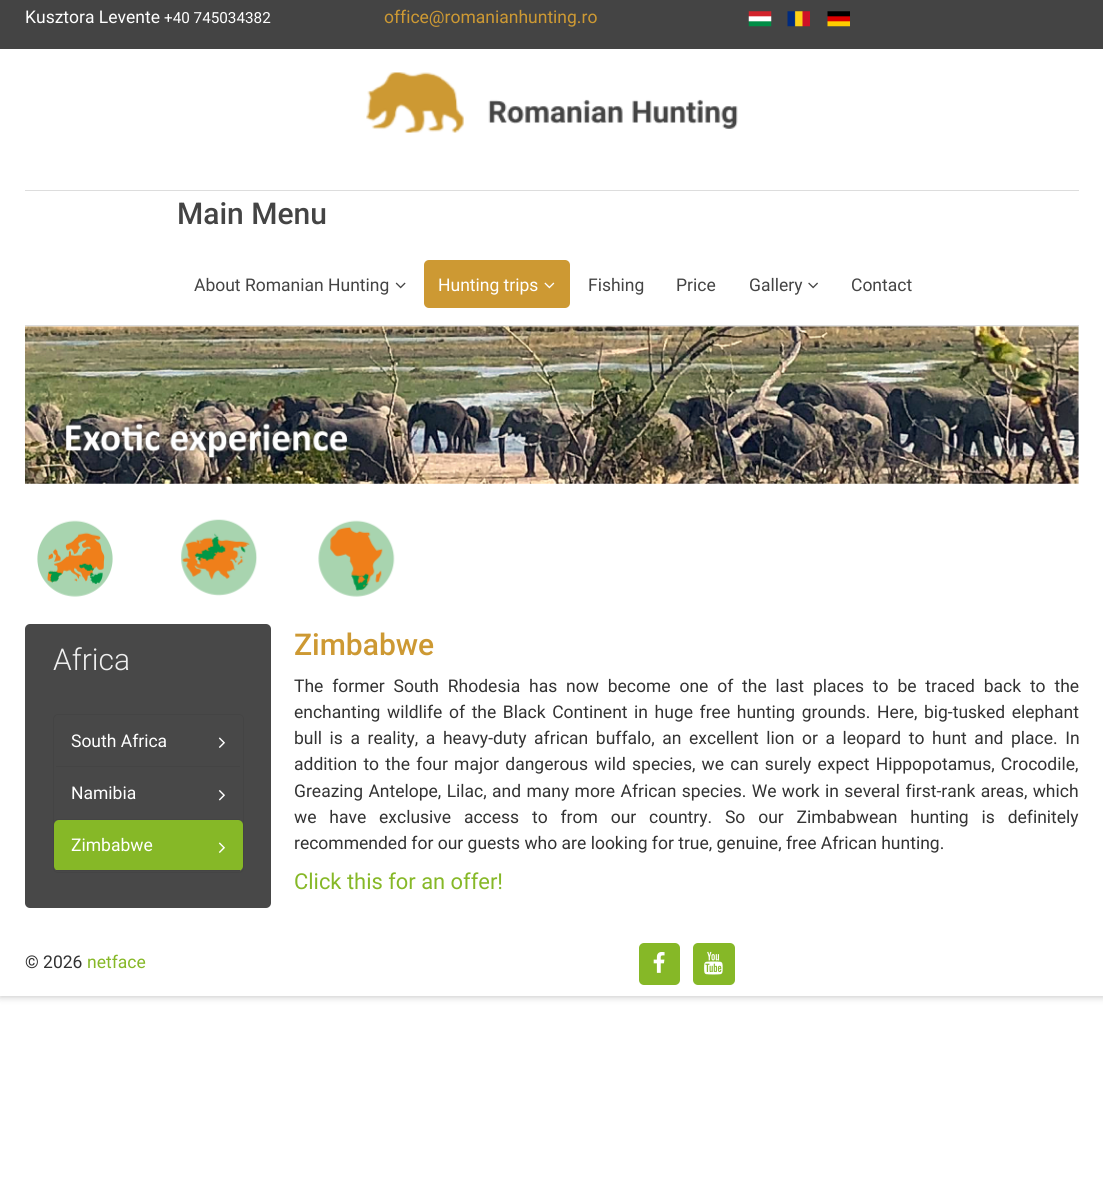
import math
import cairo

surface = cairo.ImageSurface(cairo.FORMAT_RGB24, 1103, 1201)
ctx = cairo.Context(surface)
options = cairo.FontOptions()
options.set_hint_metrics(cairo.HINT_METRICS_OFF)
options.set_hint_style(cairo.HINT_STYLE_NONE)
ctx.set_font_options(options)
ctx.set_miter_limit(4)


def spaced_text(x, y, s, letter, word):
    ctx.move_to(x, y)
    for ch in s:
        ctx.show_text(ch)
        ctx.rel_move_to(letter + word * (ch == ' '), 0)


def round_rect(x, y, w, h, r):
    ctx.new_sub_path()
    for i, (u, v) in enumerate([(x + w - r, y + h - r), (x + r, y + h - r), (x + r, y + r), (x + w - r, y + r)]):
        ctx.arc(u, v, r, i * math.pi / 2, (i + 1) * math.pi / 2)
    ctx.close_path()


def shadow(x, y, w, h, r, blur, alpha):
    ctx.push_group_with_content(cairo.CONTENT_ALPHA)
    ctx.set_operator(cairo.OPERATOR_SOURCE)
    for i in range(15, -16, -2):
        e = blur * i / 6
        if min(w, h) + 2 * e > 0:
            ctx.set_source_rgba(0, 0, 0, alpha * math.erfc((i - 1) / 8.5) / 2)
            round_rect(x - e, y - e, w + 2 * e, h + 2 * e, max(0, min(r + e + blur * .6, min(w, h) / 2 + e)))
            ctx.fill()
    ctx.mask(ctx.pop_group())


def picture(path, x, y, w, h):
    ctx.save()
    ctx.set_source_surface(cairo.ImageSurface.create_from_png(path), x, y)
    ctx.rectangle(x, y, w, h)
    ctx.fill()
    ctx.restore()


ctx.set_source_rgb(1, 1, 1)
ctx.paint()
ctx.set_source_rgb(0, 0, 0)
shadow(0, 0, 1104, 996, 0, 4, 0.27)
ctx.set_source_rgb(1, 1, 1)
ctx.rectangle(0, 49, 1103, 947)
ctx.fill()
ctx.set_source_rgb(0.267, 0.267, 0.267)
ctx.rectangle(0, 0, 1103, 49)
ctx.fill()
ctx.select_font_face("Roboto")
ctx.set_font_size(17.5)
ctx.set_source_rgb(1, 1, 1)
ctx.move_to(25, 23)
ctx.show_text("Kusztora Levente")
ctx.set_font_size(15.25)
ctx.move_to(164, 23)
ctx.show_text("+40 745034382")
ctx.set_font_size(17.5)
ctx.set_source_rgb(0.804, 0.6, 0.2)
ctx.move_to(384, 23)
ctx.show_text("office@romanianhunting.ro")
picture("img1.png", 748, 11, 24, 16)
picture("img2.png", 787, 11, 23, 16)
picture("img3.png", 827, 11, 23, 16)
picture("img4.png", 366, 72, 372, 61)
ctx.set_source_rgb(0.867, 0.867, 0.867)
ctx.rectangle(25, 190, 1054, 1)
ctx.fill()
ctx.rectangle(25, 325, 1054, 1)
ctx.fill()
ctx.select_font_face("Roboto Medium")
ctx.set_font_size(30)
ctx.set_source_rgb(0.267, 0.267, 0.267)
ctx.move_to(177, 224)
ctx.show_text("Main Menu")
ctx.select_font_face("Roboto")
ctx.set_font_size(17.5)
ctx.move_to(194, 291)
ctx.show_text("About Romanian Hunting")
picture("img5.png", 395, 282, 11, 7)
ctx.set_source_rgb(0.804, 0.6, 0.2)
round_rect(424, 260, 146, 48, 5)
ctx.fill()
ctx.set_source_rgb(1, 1, 1)
ctx.move_to(438, 291)
ctx.show_text("Hunting trips")
picture("img6.png", 544, 282, 11, 7)
ctx.set_source_rgb(0.267, 0.267, 0.267)
ctx.move_to(588, 291)
ctx.show_text("Fishing")
ctx.move_to(676, 291)
ctx.show_text("Price")
ctx.move_to(749, 291)
ctx.show_text("Gallery")
picture("img7.png", 808, 282, 10, 7)
ctx.move_to(851, 291)
ctx.show_text("Contact")
picture("img8.png", 25, 326, 1054, 158)
picture("img9.png", 37, 520, 76, 77)
picture("img10.png", 181, 519, 76, 77)
picture("img11.png", 318, 520, 77, 77)
ctx.set_source_rgb(0.282, 0.282, 0.282)
round_rect(25, 624, 246, 284, 5)
ctx.fill()
ctx.select_font_face("Roboto Light")
ctx.set_font_size(30)
ctx.set_source_rgb(0.933, 0.933, 0.933)
ctx.move_to(53, 670)
ctx.show_text("Africa")
round_rect(53.5, 714.5, 190, 158, 4.5)
ctx.set_source_rgb(0.267, 0.267, 0.267)
ctx.set_line_width(1)
ctx.stroke()
ctx.rectangle(56, 766, 184, 1)
ctx.fill()
ctx.select_font_face("Roboto")
ctx.set_font_size(17.5)
ctx.set_source_rgb(1, 1, 1)
ctx.move_to(71, 747)
ctx.show_text("South Africa")
picture("img12.png", 218, 737, 7, 11)
ctx.set_source_rgb(0.267, 0.267, 0.267)
ctx.rectangle(56, 819, 184, 1)
ctx.fill()
ctx.set_source_rgb(1, 1, 1)
ctx.move_to(71, 799)
ctx.show_text("Namibia")
picture("img13.png", 218, 790, 7, 11)
ctx.set_source_rgb(0.525, 0.722, 0.153)
round_rect(54, 820, 189, 51, 5)
ctx.fill()
ctx.set_source_rgb(0.267, 0.267, 0.267)
ctx.rectangle(56, 870, 184, 1)
ctx.fill()
ctx.set_source_rgb(1, 1, 1)
ctx.move_to(71, 851)
ctx.show_text("Zimbabwe")
picture("img14.png", 218, 842, 7, 11)
ctx.select_font_face("Roboto Medium")
ctx.set_font_size(30)
ctx.set_source_rgb(0.804, 0.6, 0.2)
ctx.move_to(294, 655)
ctx.show_text("Zimbabwe")
ctx.select_font_face("Roboto")
ctx.set_font_size(17.5)
ctx.set_source_rgb(0.2, 0.2, 0.2)
spaced_text(294, 692, "The former South Rhodesia has now become one of the last places to be traced back to the", 0, 4.5)
spaced_text(294, 718, "enchanting wildlife of the Black Continent in huge free hunting grounds. Here, big-tusked elephant", 0, 2.25)
spaced_text(294, 744, "bull is a reality, a heavy-duty african buffalo, an excellent lion or a leopard to hunt and place. In", 0, 3.25)
spaced_text(294, 770, "addition to the four major dangerous wild species, we can surely expect Hippopotamus, Crocodile,", 0, 1.9)
spaced_text(294, 797, "Greazing Antelope, Lilac, and many more African species. We work in several first-rank areas, which", 0, 1)
spaced_text(294, 823, "we have exclusive access to from our country. So our Zimbabwean hunting is definitely", 0, 8.5)
ctx.move_to(294, 849)
ctx.show_text("recommended for our guests who are looking for true, genuine, free African hunting.")
ctx.set_font_size(21.9)
ctx.set_source_rgb(0.525, 0.722, 0.153)
ctx.move_to(294, 889)
ctx.show_text("Click this for an offer!")
ctx.set_font_size(17.5)
ctx.set_source_rgb(0.2, 0.2, 0.2)
ctx.move_to(25, 968)
ctx.show_text("© 2026")
ctx.set_source_rgb(0.525, 0.722, 0.153)
ctx.move_to(87, 968)
ctx.show_text("netface")
round_rect(639, 943, 41, 42, 5)
ctx.fill()
picture("img15.png", 653, 952, 12, 21)
round_rect(693, 943, 42, 42, 5)
ctx.fill()
picture("img16.png", 704, 951, 19, 24)
surface.write_to_png("page.png")
